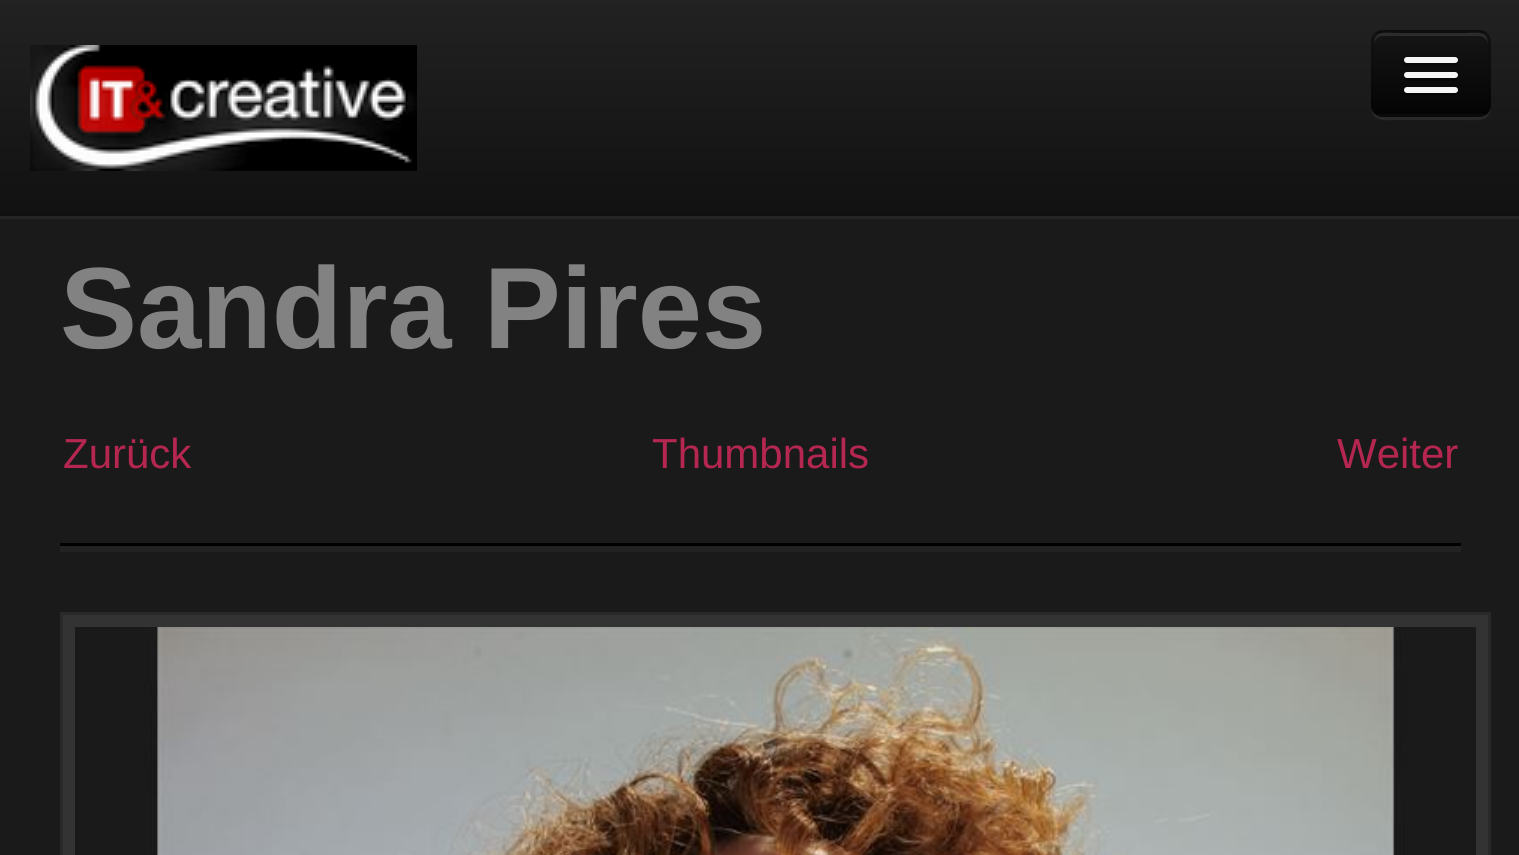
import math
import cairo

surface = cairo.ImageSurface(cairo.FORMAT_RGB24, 1519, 855)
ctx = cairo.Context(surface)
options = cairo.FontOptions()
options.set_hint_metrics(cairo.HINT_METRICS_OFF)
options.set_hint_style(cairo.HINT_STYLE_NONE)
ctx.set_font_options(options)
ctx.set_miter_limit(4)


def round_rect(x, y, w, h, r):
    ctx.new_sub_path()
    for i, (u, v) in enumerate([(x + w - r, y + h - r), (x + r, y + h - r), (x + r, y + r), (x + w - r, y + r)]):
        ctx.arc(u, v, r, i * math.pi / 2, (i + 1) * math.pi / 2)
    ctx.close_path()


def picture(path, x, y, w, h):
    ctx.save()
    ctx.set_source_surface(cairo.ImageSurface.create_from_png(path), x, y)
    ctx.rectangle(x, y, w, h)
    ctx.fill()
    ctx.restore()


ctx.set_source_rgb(0.102, 0.102, 0.102)
ctx.paint()
gradient = cairo.LinearGradient(761, 0, 761, 216)
gradient.add_color_stop_rgba(0, 0.133, 0.133, 0.133, 1)
gradient.add_color_stop_rgba(1, 0.067, 0.067, 0.067, 1)
ctx.set_source(gradient)
ctx.rectangle(0, 0, 1519, 216)
ctx.fill()
ctx.set_source_rgb(0.145, 0.145, 0.145)
ctx.rectangle(0, 216, 1519, 3)
ctx.fill()
picture("img1.png", 30, 45, 387, 126)
ctx.set_source_rgb(0.165, 0.165, 0.165)
ctx.new_path()
ctx.move_to(1371, 105)
ctx.curve_to(1371, 123, 1385, 120, 1399, 120)
ctx.line_to(1463, 120)
ctx.curve_to(1477, 120, 1491, 123, 1491, 105)
ctx.curve_to(1491, 112, 1486, 117, 1479, 117)
ctx.line_to(1383, 117)
ctx.curve_to(1376, 117, 1371, 112, 1371, 105)
ctx.close_path()
ctx.fill()
ctx.set_source_rgb(0.055, 0.055, 0.055)
round_rect(1371, 30, 120, 87, 12)
ctx.fill()
ctx.save()
round_rect(1371, 30, 120, 87, 12)
ctx.clip()
gradient = cairo.LinearGradient(1431, 33, 1431, 114)
gradient.add_color_stop_rgba(0, 0.082, 0.082, 0.082, 1)
gradient.add_color_stop_rgba(1, 0.016, 0.016, 0.016, 1)
ctx.set_source(gradient)
ctx.rectangle(1371, 33, 120, 81)
ctx.fill()
ctx.restore()
ctx.set_source_rgb(0.173, 0.173, 0.173)
ctx.new_path()
ctx.move_to(1383, 36)
ctx.line_to(1479, 36)
ctx.curve_to(1484, 36, 1488, 40, 1488, 45)
ctx.curve_to(1488, 29, 1476, 33, 1463, 33)
ctx.line_to(1399, 33)
ctx.curve_to(1386, 33, 1374, 29, 1374, 45)
ctx.curve_to(1374, 40, 1378, 36, 1383, 36)
ctx.close_path()
ctx.fill()
ctx.new_path()
ctx.move_to(1486.5, 112.5)
ctx.curve_to(1484.5, 114.5, 1482, 115.5, 1479, 115.5)
ctx.line_to(1383, 115.5)
ctx.curve_to(1380, 115.5, 1377.5, 114.5, 1375.5, 112.5)
ctx.set_source_rgba(0, 0, 0, 0.25)
ctx.set_line_width(3)
ctx.stroke()
ctx.new_path()
ctx.move_to(1375.5, 112.5)
ctx.curve_to(1373.5, 110.5, 1372.5, 108, 1372.5, 105)
ctx.line_to(1372.5, 42)
ctx.curve_to(1372.5, 39, 1373.5, 36.5, 1375.5, 34.5)
ctx.curve_to(1377.5, 32.5, 1380, 31.5, 1383, 31.5)
ctx.line_to(1479, 31.5)
ctx.curve_to(1482, 31.5, 1484.5, 32.5, 1486.5, 34.5)
ctx.curve_to(1488.5, 36.5, 1489.5, 39, 1489.5, 42)
ctx.line_to(1489.5, 105)
ctx.curve_to(1489.5, 108, 1488.5, 110.5, 1486.5, 112.5)
ctx.set_source_rgba(0, 0, 0, 0.1)
ctx.stroke()
ctx.set_source_rgb(0.043, 0.043, 0.043)
ctx.new_path()
ctx.move_to(1404, 62)
ctx.curve_to(1401, 68, 1415, 66, 1415, 66)
ctx.line_to(1447, 66)
ctx.curve_to(1447, 66, 1461, 68, 1458, 62)
ctx.curve_to(1457, 62, 1456, 63, 1455, 63)
ctx.line_to(1407, 63)
ctx.curve_to(1406, 63, 1405, 62, 1404, 62)
ctx.close_path()
ctx.fill()
ctx.set_source_rgb(0.961, 0.961, 0.961)
round_rect(1404, 57, 54, 6, 3)
ctx.fill()
ctx.set_source_rgb(0.031, 0.031, 0.031)
ctx.new_path()
ctx.move_to(1404, 76)
ctx.curve_to(1401, 83, 1415, 81, 1415, 81)
ctx.line_to(1447, 81)
ctx.curve_to(1447, 81, 1461, 83, 1458, 76)
ctx.curve_to(1457, 77, 1456, 78, 1455, 78)
ctx.line_to(1407, 78)
ctx.curve_to(1406, 78, 1405, 77, 1404, 76)
ctx.close_path()
ctx.fill()
ctx.set_source_rgb(0.961, 0.961, 0.961)
round_rect(1404, 72, 54, 6, 3)
ctx.fill()
ctx.set_source_rgb(0.024, 0.024, 0.024)
ctx.new_path()
ctx.move_to(1404, 92)
ctx.curve_to(1401, 98, 1415, 96, 1415, 96)
ctx.line_to(1447, 96)
ctx.curve_to(1447, 96, 1461, 98, 1458, 92)
ctx.curve_to(1457, 92, 1456, 93, 1455, 93)
ctx.line_to(1407, 93)
ctx.curve_to(1406, 93, 1405, 92, 1404, 92)
ctx.close_path()
ctx.fill()
ctx.set_source_rgb(0.961, 0.961, 0.961)
round_rect(1404, 87, 54, 6, 3)
ctx.fill()
ctx.select_font_face("Liberation Sans", cairo.FONT_SLANT_NORMAL, cairo.FONT_WEIGHT_BOLD)
ctx.set_font_size(115.5)
ctx.set_source_rgb(0.51, 0.51, 0.51)
ctx.move_to(60, 348)
ctx.show_text("Sandra Pires")
ctx.select_font_face("Liberation Sans")
ctx.set_font_size(42)
ctx.set_source_rgb(0.71, 0.149, 0.314)
ctx.move_to(63, 468)
ctx.show_text("Zurück")
ctx.move_to(652, 468)
ctx.show_text("Thumbnails")
ctx.move_to(1337, 468)
ctx.show_text("Weiter")
ctx.set_source_rgb(0, 0, 0)
ctx.rectangle(60, 543, 1401, 3)
ctx.fill()
ctx.set_source_rgb(0.133, 0.133, 0.133)
ctx.rectangle(60, 546, 1401, 6)
ctx.fill()
ctx.set_source_rgb(0.2, 0.2, 0.2)
ctx.rectangle(61.5, 613.5, 1428, 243)
ctx.fill_preserve()
ctx.set_source_rgb(0.161, 0.161, 0.161)
ctx.stroke()
picture("img2.png", 75, 627, 1401, 228)
surface.write_to_png("page.png")
